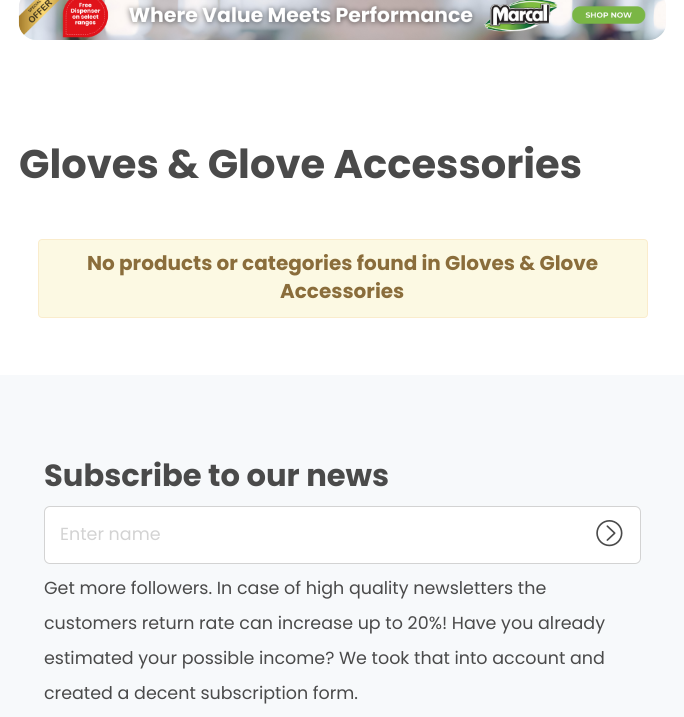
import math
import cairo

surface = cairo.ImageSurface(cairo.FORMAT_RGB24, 684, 717)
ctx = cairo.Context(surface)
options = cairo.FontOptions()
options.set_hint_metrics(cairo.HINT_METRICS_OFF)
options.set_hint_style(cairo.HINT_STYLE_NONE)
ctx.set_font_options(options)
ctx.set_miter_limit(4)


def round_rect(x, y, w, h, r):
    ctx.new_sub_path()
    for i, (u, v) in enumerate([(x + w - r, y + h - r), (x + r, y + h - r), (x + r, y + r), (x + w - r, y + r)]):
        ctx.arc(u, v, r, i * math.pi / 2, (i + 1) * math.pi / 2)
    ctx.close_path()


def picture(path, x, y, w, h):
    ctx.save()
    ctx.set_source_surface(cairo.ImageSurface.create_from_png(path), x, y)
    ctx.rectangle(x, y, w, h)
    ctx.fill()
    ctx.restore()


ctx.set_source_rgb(1, 1, 1)
ctx.paint()
picture("img1.png", 18, 0, 648, 40)
ctx.select_font_face("Poppins", cairo.FONT_SLANT_NORMAL, cairo.FONT_WEIGHT_BOLD)
ctx.set_font_size(40)
ctx.set_source_rgb(0.29, 0.29, 0.29)
ctx.move_to(19, 178)
ctx.show_text("Gloves & Glove Accessories")
ctx.set_source_rgb(0.988, 0.973, 0.89)
round_rect(38.5, 239.5, 609, 78, 3.5)
ctx.fill_preserve()
ctx.set_source_rgb(0.98, 0.922, 0.8)
ctx.set_line_width(1)
ctx.stroke()
ctx.set_font_size(20)
ctx.set_source_rgb(0.541, 0.427, 0.231)
ctx.move_to(87, 270)
ctx.show_text("No products or categories found in Gloves & Glove")
ctx.move_to(280, 298)
ctx.show_text("Accessories")
ctx.set_source_rgb(0.965, 0.973, 0.984)
ctx.rectangle(0, 375, 684, 342)
ctx.fill()
ctx.set_font_size(30.6)
ctx.set_source_rgb(0.29, 0.29, 0.29)
ctx.move_to(44, 486)
ctx.show_text("Subscribe to our news")
ctx.set_source_rgb(1, 1, 1)
round_rect(44.5, 506.5, 596, 57, 5.5)
ctx.fill_preserve()
ctx.set_source_rgb(0.827, 0.827, 0.827)
ctx.stroke()
ctx.select_font_face("Poppins")
ctx.set_font_size(17.5)
ctx.move_to(60, 540)
ctx.show_text("Enter name")
picture("img2.png", 596, 520, 27, 27)
ctx.set_source_rgb(0.29, 0.29, 0.29)
ctx.move_to(44, 594)
ctx.show_text("Get more followers. In case of high quality newsletters the")
ctx.move_to(44, 629)
ctx.show_text("customers return rate can increase up to 20%! Have you already")
ctx.move_to(44, 664)
ctx.show_text("estimated your possible income? We took that into account and")
ctx.move_to(44, 699)
ctx.show_text("created a decent subscription form.")
surface.write_to_png("page.png")
